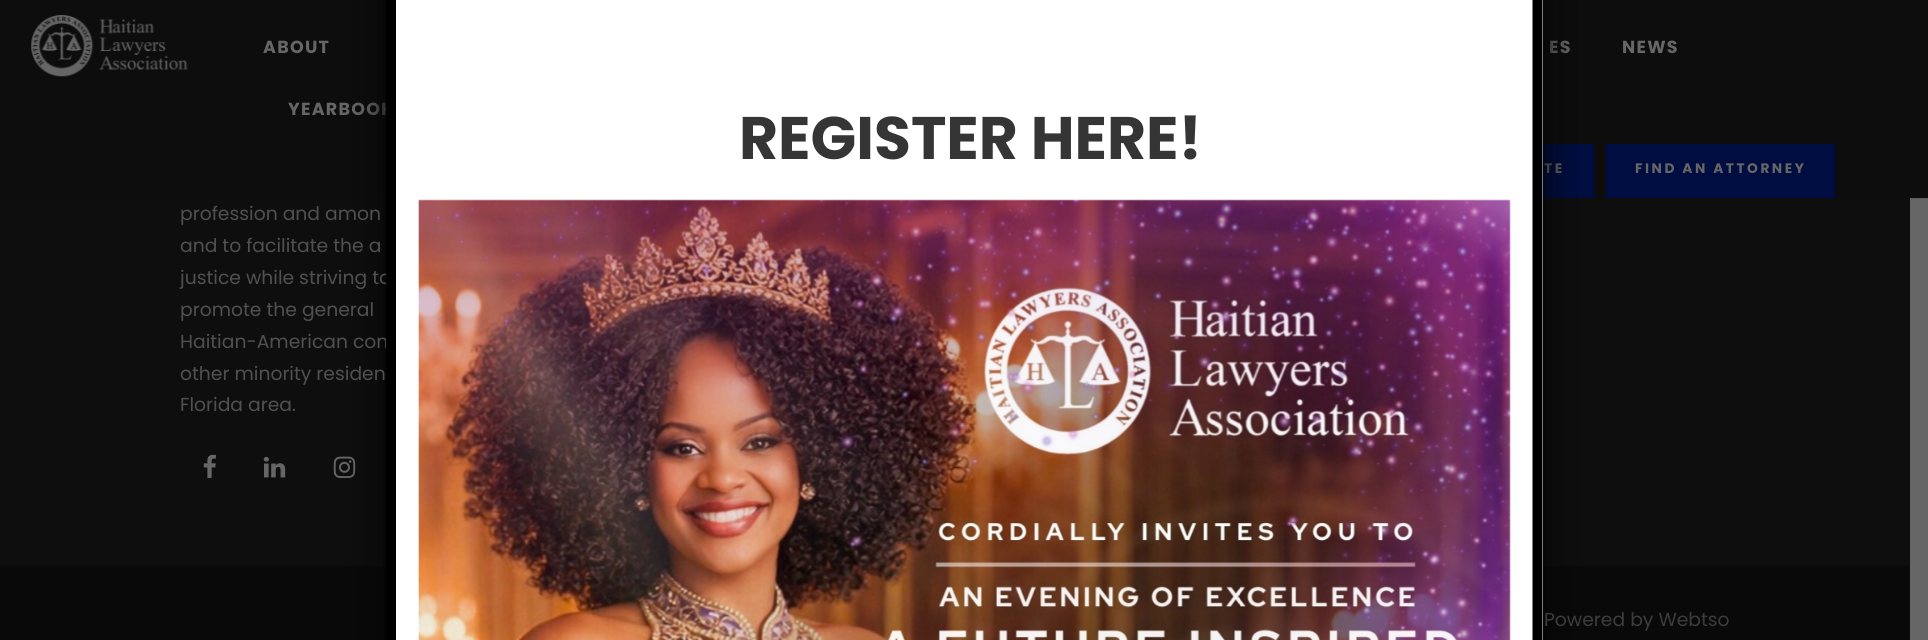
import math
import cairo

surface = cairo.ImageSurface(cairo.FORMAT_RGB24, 1928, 640)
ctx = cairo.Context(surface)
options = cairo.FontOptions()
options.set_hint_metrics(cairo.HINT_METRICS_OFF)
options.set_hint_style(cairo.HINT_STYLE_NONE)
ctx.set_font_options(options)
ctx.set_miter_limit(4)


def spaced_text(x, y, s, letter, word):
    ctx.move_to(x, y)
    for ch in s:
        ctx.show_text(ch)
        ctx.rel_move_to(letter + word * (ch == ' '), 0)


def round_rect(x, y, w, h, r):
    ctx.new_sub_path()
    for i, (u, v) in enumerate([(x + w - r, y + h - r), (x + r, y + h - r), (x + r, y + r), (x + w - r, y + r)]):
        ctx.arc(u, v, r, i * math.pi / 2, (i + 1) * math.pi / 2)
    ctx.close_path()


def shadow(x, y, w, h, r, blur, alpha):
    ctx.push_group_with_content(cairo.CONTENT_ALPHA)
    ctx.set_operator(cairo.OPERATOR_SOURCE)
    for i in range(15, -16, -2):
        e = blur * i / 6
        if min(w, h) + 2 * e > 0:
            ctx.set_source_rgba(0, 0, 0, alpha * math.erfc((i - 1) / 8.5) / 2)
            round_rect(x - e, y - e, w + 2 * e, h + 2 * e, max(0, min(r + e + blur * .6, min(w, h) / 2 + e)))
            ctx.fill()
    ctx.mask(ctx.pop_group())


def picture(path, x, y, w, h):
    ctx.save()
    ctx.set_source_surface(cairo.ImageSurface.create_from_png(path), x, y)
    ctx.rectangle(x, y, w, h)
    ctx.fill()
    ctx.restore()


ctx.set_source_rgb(0.4, 0.4, 0.4)
ctx.paint()
ctx.set_source_rgb(0.055, 0.055, 0.055)
ctx.rectangle(0, 198, 1910, 368)
ctx.fill()
ctx.set_source_rgb(0, 0, 0)
shadow(0, 1, 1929, 198, 0, 1, 0.1)
ctx.set_source_rgb(0.051, 0.051, 0.051)
ctx.rectangle(0, 0, 1928, 198)
ctx.fill()
picture("img1.png", 31, 15, 157, 62)
ctx.select_font_face("Poppins", cairo.FONT_SLANT_NORMAL, cairo.FONT_WEIGHT_BOLD)
ctx.set_font_size(17.5)
ctx.set_source_rgb(0.4, 0.4, 0.4)
spaced_text(263, 53, "ABOUT", 1.25, 0)
spaced_text(1549, 53, "ES", 1.25, 0)
spaced_text(1622, 53, "NEWS", 1.25, 0)
spaced_text(288, 115, "YEARBOOK", 1.25, 0)
ctx.set_source_rgb(0, 0.051, 0.251)
ctx.rectangle(1543, 144, 51, 54)
ctx.fill()
ctx.set_font_size(13.75)
ctx.set_source_rgb(0.4, 0.4, 0.4)
spaced_text(1544, 173, "TE", 2.5, 0)
ctx.set_source_rgb(0, 0.051, 0.251)
ctx.rectangle(1606, 144, 229, 54)
ctx.fill()
ctx.set_source_rgb(0.4, 0.4, 0.4)
spaced_text(1635, 173, "FIND AN ATTORNEY", 2.5, 0)
picture("img5.png", 333, 456, 23, 22)
ctx.set_source_rgb(0.039, 0.039, 0.039)
ctx.rectangle(0, 566, 1910, 74)
ctx.fill()
ctx.set_source_rgb(0.008, 0.008, 0.008)
shadow(386, -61, 1157, 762, 4, 19, 1)
ctx.set_source_rgb(1, 1, 1)
ctx.rectangle(396, 0, 1147, 640)
ctx.fill()
ctx.select_font_face("Poppins")
ctx.set_font_size(18.75)
ctx.set_source_rgb(0.314, 0.314, 0.314)
ctx.move_to(180, 284)
ctx.show_text("justice while striving to")
ctx.move_to(180, 348)
ctx.show_text("Haitian-American com")
ctx.new_path()
ctx.move_to(391, -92.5)
ctx.line_to(1537.5, -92.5)
ctx.line_to(1537.5, 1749)
ctx.line_to(391, 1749)
ctx.close_path()
ctx.set_source_rgb(0, 0, 0)
ctx.set_line_width(10)
ctx.stroke()
ctx.select_font_face("Poppins", cairo.FONT_SLANT_NORMAL, cairo.FONT_WEIGHT_BOLD)
ctx.set_font_size(60)
ctx.set_source_rgb(0.208, 0.208, 0.208)
ctx.move_to(739, 159)
ctx.show_text("REGISTER HERE!")
picture("img2.png", 418, 199, 1093, 441)
ctx.select_font_face("Poppins")
ctx.set_font_size(18.75)
ctx.set_source_rgb(0.314, 0.314, 0.314)
ctx.move_to(180, 220)
ctx.show_text("profession and amon")
ctx.move_to(180, 252)
ctx.show_text("and to facilitate the a")
ctx.move_to(180, 316)
ctx.show_text("promote the general")
ctx.move_to(180, 380)
ctx.show_text("other minority residen")
ctx.move_to(180, 411)
ctx.show_text("Florida area.")
picture("img3.png", 203, 454, 13, 25)
picture("img4.png", 263, 456, 23, 22)
ctx.set_source_rgb(0.235, 0.235, 0.235)
ctx.move_to(1544, 626)
ctx.show_text("Powered by Webtso")
surface.write_to_png("page.png")
